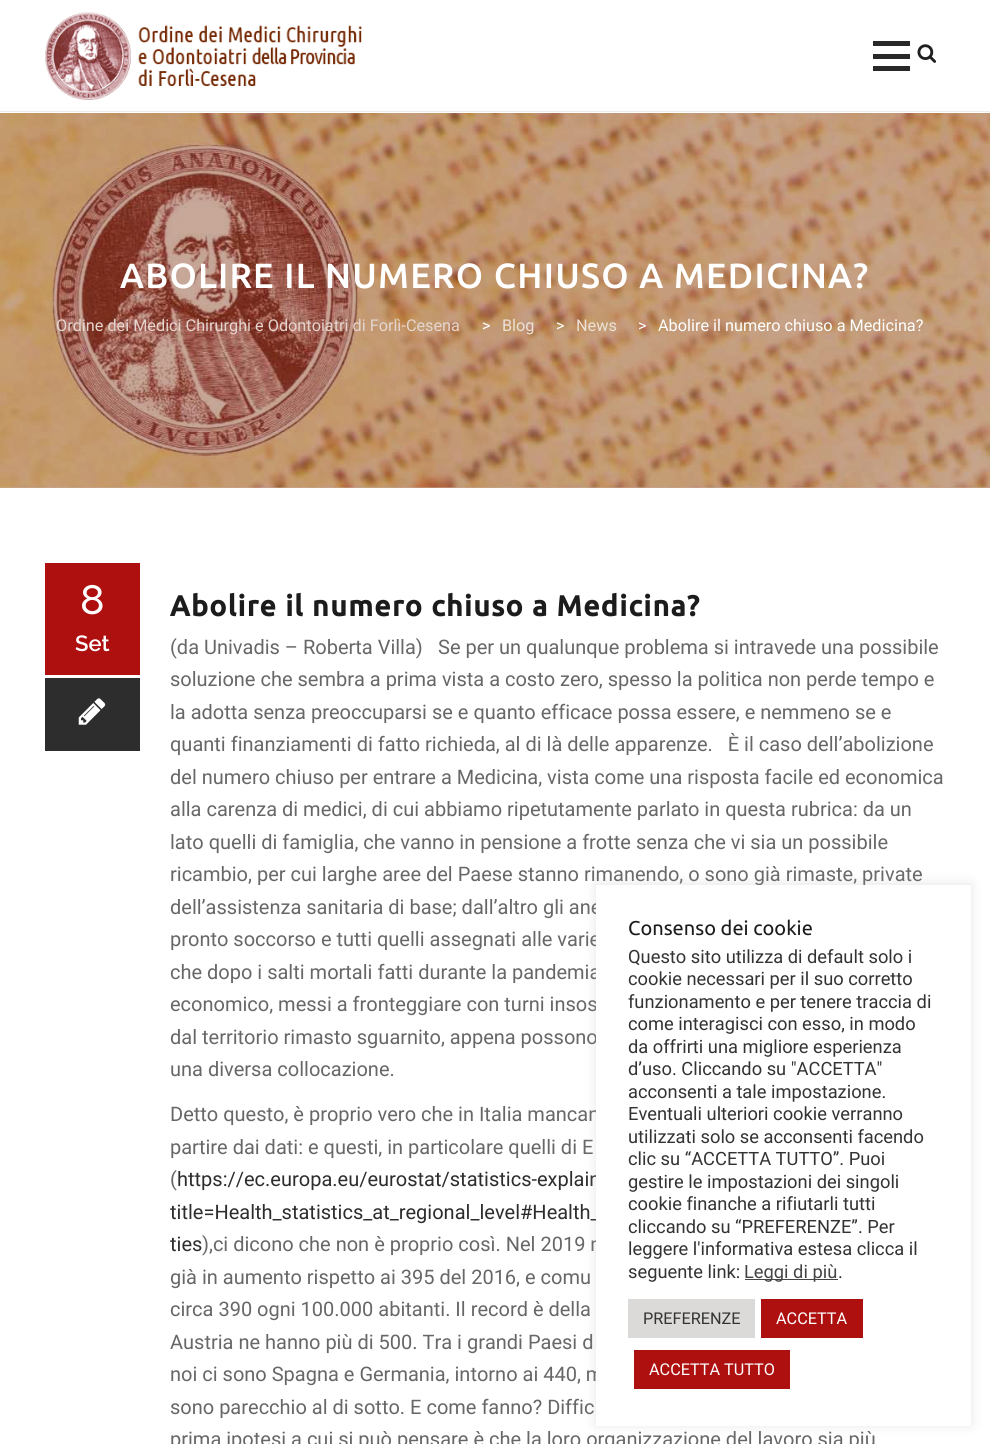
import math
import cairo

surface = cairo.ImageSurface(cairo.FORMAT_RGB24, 990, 1444)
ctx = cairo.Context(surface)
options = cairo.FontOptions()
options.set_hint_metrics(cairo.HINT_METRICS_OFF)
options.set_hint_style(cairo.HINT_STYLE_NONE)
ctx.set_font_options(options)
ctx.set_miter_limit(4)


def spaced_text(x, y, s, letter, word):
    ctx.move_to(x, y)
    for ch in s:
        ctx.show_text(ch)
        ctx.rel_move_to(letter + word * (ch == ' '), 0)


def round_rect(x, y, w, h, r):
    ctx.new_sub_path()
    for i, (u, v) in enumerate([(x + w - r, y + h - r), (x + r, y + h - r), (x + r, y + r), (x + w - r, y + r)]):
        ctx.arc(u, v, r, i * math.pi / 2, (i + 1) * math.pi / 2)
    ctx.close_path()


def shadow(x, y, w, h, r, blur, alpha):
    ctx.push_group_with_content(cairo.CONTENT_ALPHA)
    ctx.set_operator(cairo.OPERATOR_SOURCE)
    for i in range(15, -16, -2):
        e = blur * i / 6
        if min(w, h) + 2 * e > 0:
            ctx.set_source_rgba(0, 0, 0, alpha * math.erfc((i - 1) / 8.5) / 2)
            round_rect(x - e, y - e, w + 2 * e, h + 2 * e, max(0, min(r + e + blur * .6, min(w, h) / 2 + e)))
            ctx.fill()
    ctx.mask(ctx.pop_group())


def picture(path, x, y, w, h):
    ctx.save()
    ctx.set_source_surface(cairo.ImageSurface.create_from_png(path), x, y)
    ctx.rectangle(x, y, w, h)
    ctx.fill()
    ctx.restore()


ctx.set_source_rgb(1, 1, 1)
ctx.paint()
picture("img1.png", 45, 12, 317, 88)
ctx.set_source_rgb(0.157, 0.157, 0.157)
ctx.rectangle(873, 54, 37, 5)
ctx.fill()
ctx.rectangle(873, 41, 37, 5)
ctx.fill()
ctx.rectangle(873, 66, 37, 5)
ctx.fill()
picture("img2.png", 917, 44, 20, 19)
ctx.set_source_rgb(0.918, 0.918, 0.918)
ctx.rectangle(0, 111, 990, 1)
ctx.fill()
picture("img3.png", 0, 113, 990, 375)
ctx.set_source_rgba(0.451, 0.149, 0, 0.4)
ctx.rectangle(0, 113, 990, 375)
ctx.fill()
ctx.select_font_face("Ubuntu Medium")
ctx.set_font_size(35)
ctx.set_source_rgb(1, 1, 1)
spaced_text(120, 288, "ABOLIRE IL NUMERO CHIUSO A MEDICINA?", 1.25, 0)
ctx.select_font_face("Roboto")
ctx.set_font_size(16.25)
ctx.set_source_rgb(0.898, 0.835, 0.812)
ctx.move_to(56, 331)
ctx.show_text("Ordine dei Medici Chirurghi e Odontoiatri di Forlì-Cesena")
ctx.set_source_rgb(1, 1, 1)
ctx.move_to(482, 331)
ctx.show_text(">")
ctx.set_source_rgb(0.929, 0.882, 0.839)
ctx.move_to(502, 331)
ctx.show_text("Blog")
ctx.set_source_rgb(1, 1, 1)
ctx.move_to(556, 331)
ctx.show_text(">")
ctx.set_source_rgb(0.929, 0.882, 0.839)
ctx.move_to(576, 331)
ctx.show_text("News")
ctx.set_source_rgb(1, 1, 1)
ctx.move_to(638, 331)
ctx.show_text(">")
ctx.move_to(658, 331)
ctx.show_text("Abolire il numero chiuso a Medicina?")
ctx.set_source_rgb(0.682, 0.063, 0.063)
ctx.rectangle(45, 563, 95, 112)
ctx.fill()
ctx.select_font_face("Raleway Medium")
ctx.set_font_size(41)
ctx.set_source_rgb(1, 1, 1)
ctx.move_to(80, 614)
ctx.show_text("8")
ctx.select_font_face("Raleway SemiBold")
ctx.set_font_size(22)
ctx.move_to(75, 651)
ctx.show_text("Set")
ctx.set_source_rgb(0.176, 0.176, 0.176)
ctx.rectangle(45, 678, 95, 73)
ctx.fill()
picture("img4.png", 78, 698, 28, 27)
ctx.select_font_face("Ubuntu", cairo.FONT_SLANT_NORMAL, cairo.FONT_WEIGHT_BOLD)
ctx.set_font_size(28.75)
ctx.set_source_rgb(0.11, 0.11, 0.11)
spaced_text(170, 616, "Abolire il numero chiuso a Medicina?", 1.25, 0)
ctx.select_font_face("Roboto")
ctx.set_font_size(20)
ctx.set_source_rgb(0.404, 0.404, 0.404)
ctx.move_to(170, 654)
ctx.show_text("(da Univadis – Roberta Villa)")
ctx.move_to(438, 654)
ctx.show_text("Se per un qualunque problema si intravede una possibile")
ctx.move_to(170, 686)
ctx.show_text("soluzione che sembra a prima vista a costo zero, spesso la politica non perde tempo e")
ctx.move_to(170, 719)
ctx.show_text("la adotta senza preoccuparsi se e quanto efficace possa essere, e nemmeno se e")
ctx.move_to(170, 751)
ctx.show_text("quanti finanziamenti di fatto richieda, al di là delle apparenze.   È il caso dell’abolizione")
ctx.move_to(170, 784)
ctx.show_text("del numero chiuso per entrare a Medicina, vista come una risposta facile ed economica")
ctx.move_to(170, 816)
ctx.show_text("alla carenza di medici, di cui abbiamo ripetutamente parlato in questa rubrica: da un")
ctx.move_to(170, 849)
ctx.show_text("lato quelli di famiglia, che vanno in pensione a frotte senza che vi sia un possibile")
ctx.move_to(170, 881)
ctx.show_text("ricambio, per cui larghe aree del Paese stanno rimanendo, o sono già rimaste, private")
ctx.move_to(170, 914)
ctx.show_text("dell’assistenza sanitaria di base; dall’altro gli ane")
ctx.move_to(170, 946)
ctx.show_text("pronto soccorso e tutti quelli assegnati alle varie")
ctx.move_to(170, 979)
ctx.show_text("che dopo i salti mortali fatti durante la pandemia")
ctx.move_to(170, 1011)
ctx.show_text("economico, messi a fronteggiare con turni insos")
ctx.move_to(170, 1044)
ctx.show_text("dal territorio rimasto sguarnito, appena possono")
ctx.move_to(170, 1076)
ctx.show_text("una diversa collocazione.")
ctx.move_to(170, 1121)
ctx.show_text("Detto questo, è proprio vero che in Italia mancan")
ctx.move_to(170, 1154)
ctx.show_text("partire dai dati: e questi, in particolare quelli di E")
ctx.move_to(170, 1186)
ctx.show_text("(")
ctx.set_source_rgb(0.176, 0.176, 0.176)
ctx.move_to(177, 1186)
ctx.show_text("https://ec.europa.eu/eurostat/statistics-explain")
ctx.move_to(170, 1219)
ctx.show_text("title=Health_statistics_at_regional_level#Health_")
ctx.move_to(170, 1251)
ctx.show_text("ties")
ctx.set_source_rgb(0.404, 0.404, 0.404)
ctx.move_to(202, 1251)
ctx.show_text("),ci dicono che non è proprio così. Nel 2019 n")
ctx.move_to(170, 1284)
ctx.show_text("già in aumento rispetto ai 395 del 2016, e comu")
ctx.move_to(170, 1316)
ctx.show_text("circa 390 ogni 100.000 abitanti. Il record è della")
ctx.move_to(170, 1349)
ctx.show_text("Austria ne hanno più di 500. Tra i grandi Paesi d")
ctx.move_to(170, 1381)
ctx.show_text("noi ci sono Spagna e Germania, intorno ai 440, m")
ctx.move_to(170, 1414)
ctx.show_text("sono parecchio al di sotto. E come fanno? Diffic")
ctx.move_to(170, 1446)
ctx.show_text("prima ipotesi a cui si può pensare è che la loro organizzazione del lavoro sia più")
ctx.set_source_rgb(0.675, 0.671, 0.671)
shadow(596, 884, 375, 541, 0, 6, 0.3)
ctx.set_source_rgb(1, 1, 1)
ctx.rectangle(596, 885, 375, 541)
ctx.fill()
ctx.select_font_face("Ubuntu")
ctx.set_source_rgb(0.11, 0.11, 0.11)
ctx.move_to(628, 935)
ctx.show_text("Consenso dei cookie")
ctx.select_font_face("Roboto")
ctx.set_font_size(18.3)
ctx.set_source_rgb(0.2, 0.2, 0.2)
ctx.move_to(628, 963)
ctx.show_text("Questo sito utilizza di default solo i")
ctx.move_to(628, 985)
ctx.show_text("cookie necessari per il suo corretto")
ctx.move_to(628, 1008)
ctx.show_text("funzionamento e per tenere traccia di")
ctx.move_to(628, 1030)
ctx.show_text("come interagisci con esso, in modo")
ctx.move_to(628, 1053)
ctx.show_text("da offrirti una migliore esperienza")
ctx.move_to(628, 1075)
ctx.show_text("d’uso. Cliccando su \"ACCETTA\"")
ctx.move_to(628, 1098)
ctx.show_text("acconsenti a tale impostazione.")
ctx.move_to(628, 1120)
ctx.show_text("Eventuali ulteriori cookie verranno")
ctx.move_to(628, 1143)
ctx.show_text("utilizzati solo se acconsenti facendo")
ctx.move_to(628, 1165)
ctx.show_text("clic su “ACCETTA TUTTO”. Puoi")
ctx.move_to(628, 1188)
ctx.show_text("gestire le impostazioni dei singoli")
ctx.move_to(628, 1210)
ctx.show_text("cookie finanche a rifiutarli tutti")
ctx.move_to(628, 1233)
ctx.show_text("cliccando su “PREFERENZE”. Per")
ctx.move_to(628, 1255)
ctx.show_text("leggere l'informativa estesa clicca il")
ctx.move_to(628, 1278)
ctx.show_text("seguente link:")
ctx.set_source_rgb(0.267, 0.267, 0.267)
ctx.rectangle(745, 1279, 93, 1)
ctx.fill()
ctx.move_to(744, 1278)
ctx.show_text("Leggi di più")
ctx.set_source_rgb(0.2, 0.2, 0.2)
ctx.move_to(838, 1278)
ctx.show_text(".")
ctx.set_source_rgb(0.859, 0.855, 0.851)
ctx.rectangle(628, 1299, 127, 39)
ctx.fill()
ctx.set_font_size(16.25)
ctx.set_source_rgb(0.2, 0.2, 0.2)
ctx.move_to(643, 1324)
ctx.show_text("PREFERENZE")
ctx.set_source_rgb(0.682, 0.063, 0.063)
ctx.rectangle(761, 1299, 102, 39)
ctx.fill()
ctx.set_source_rgb(1, 1, 1)
ctx.move_to(776, 1324)
ctx.show_text("ACCETTA")
ctx.set_source_rgb(0.682, 0.063, 0.063)
ctx.rectangle(634, 1350, 156, 39)
ctx.fill()
ctx.set_source_rgb(1, 1, 1)
ctx.move_to(649, 1375)
ctx.show_text("ACCETTA TUTTO")
surface.write_to_png("page.png")
